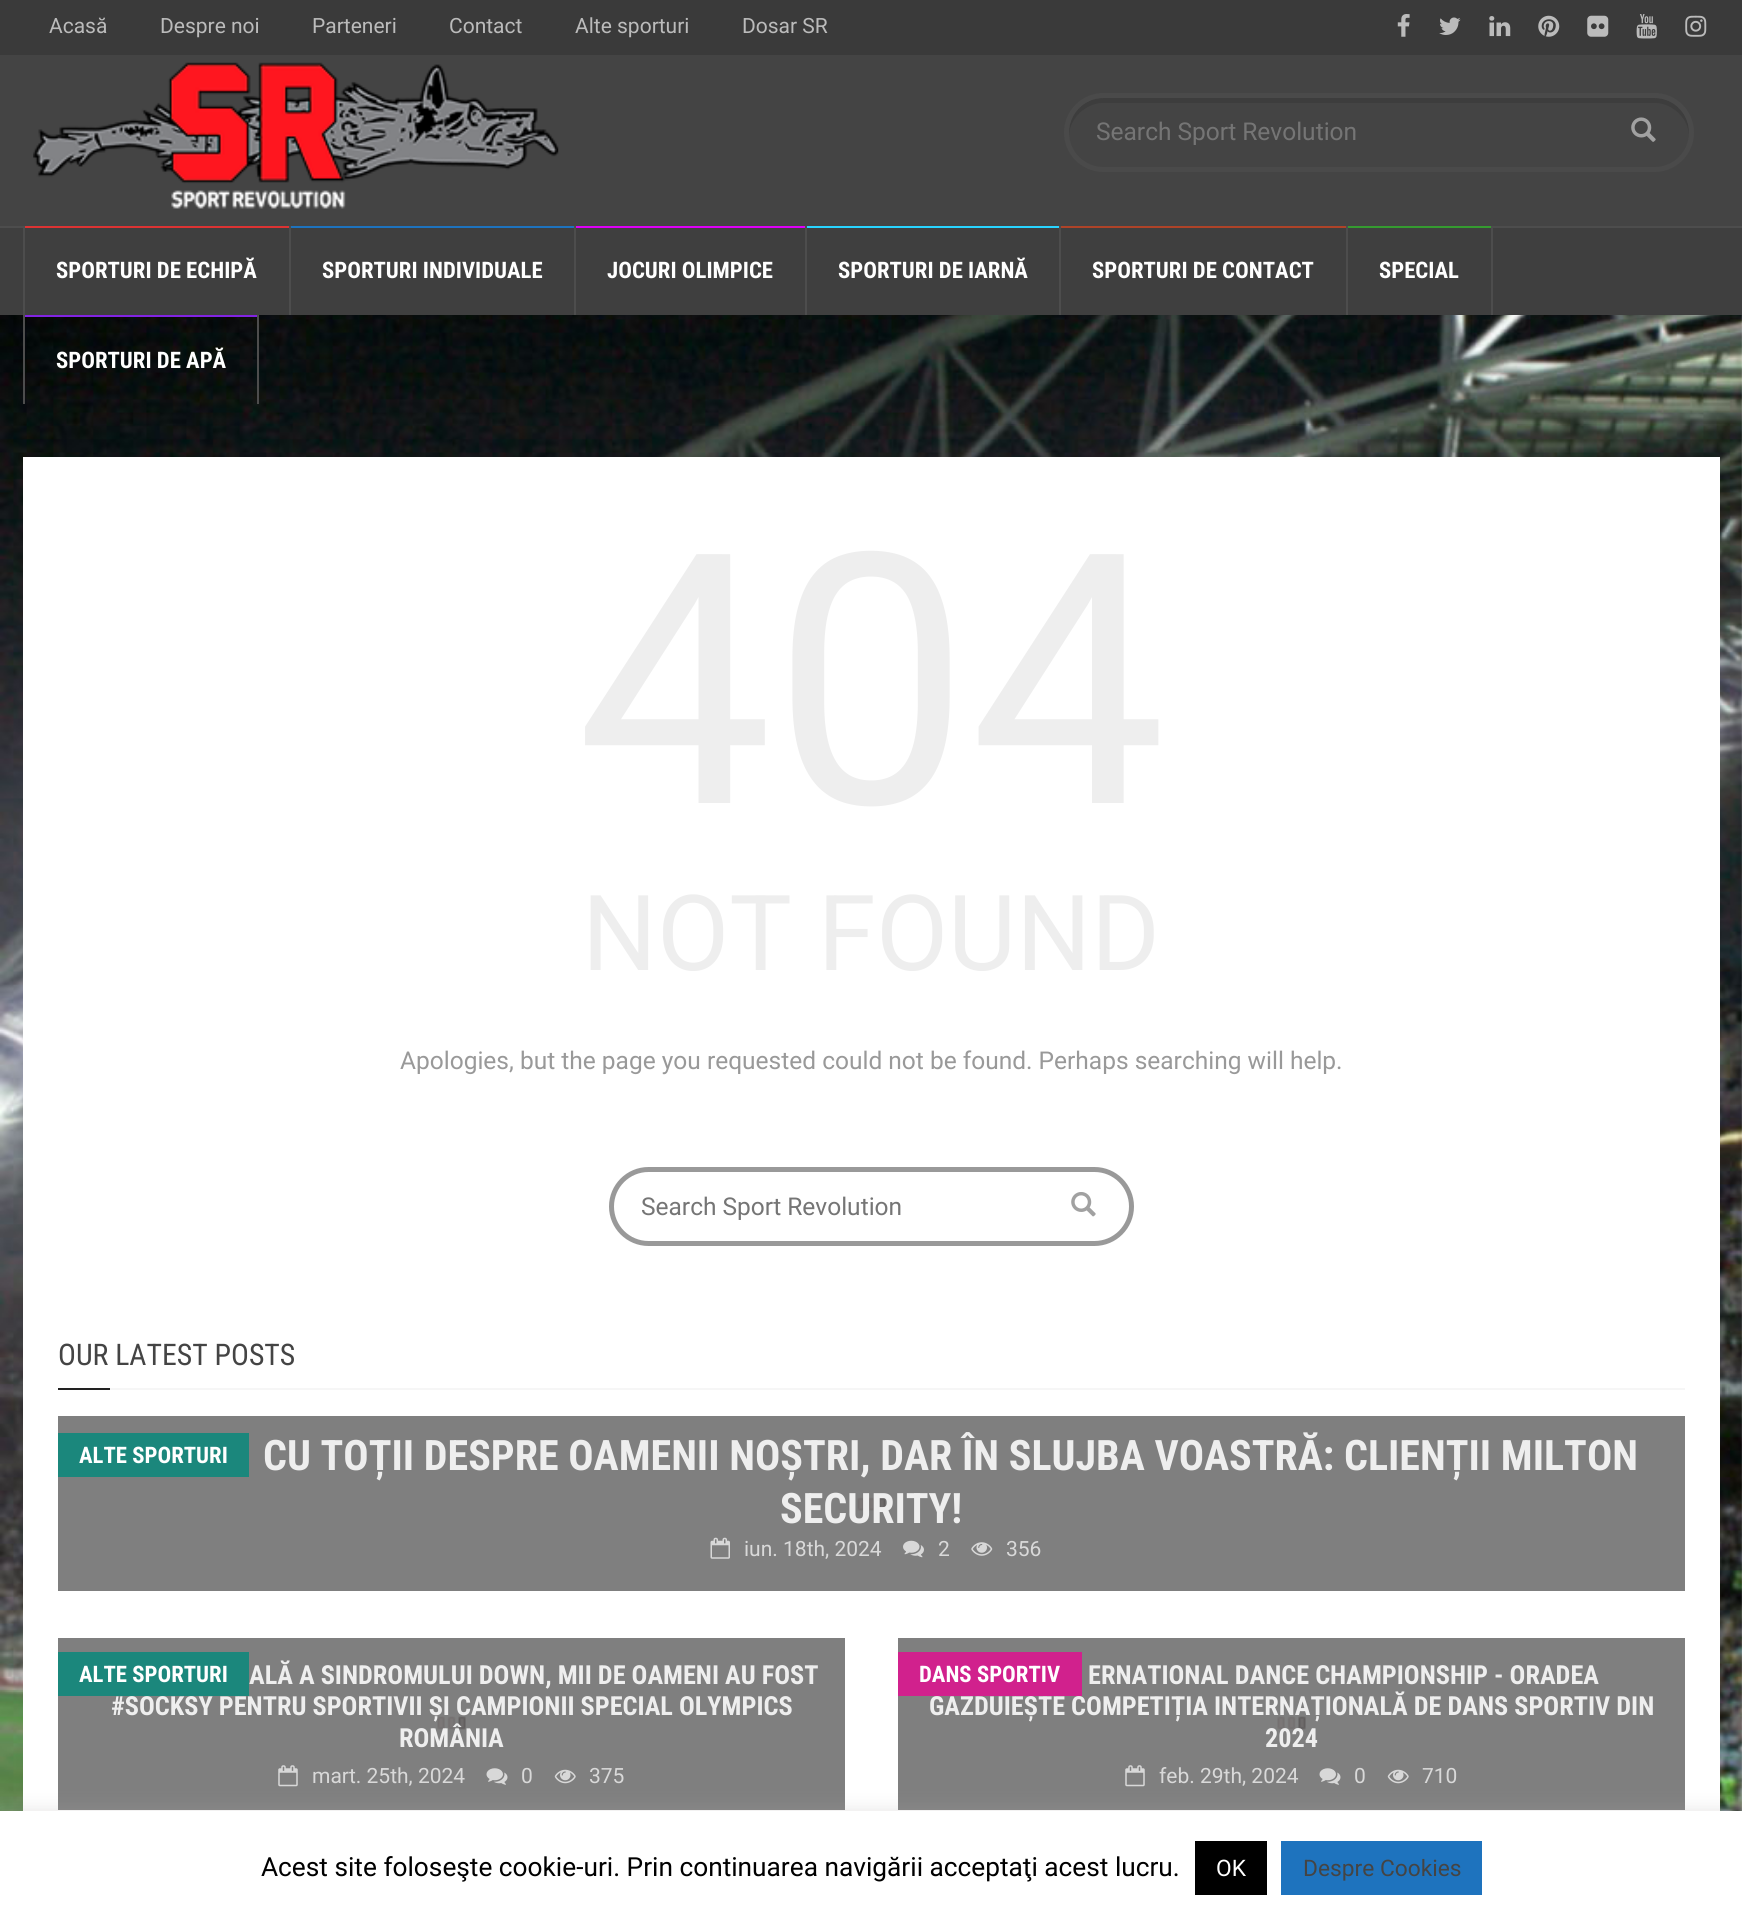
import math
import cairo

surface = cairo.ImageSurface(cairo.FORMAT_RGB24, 1742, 1915)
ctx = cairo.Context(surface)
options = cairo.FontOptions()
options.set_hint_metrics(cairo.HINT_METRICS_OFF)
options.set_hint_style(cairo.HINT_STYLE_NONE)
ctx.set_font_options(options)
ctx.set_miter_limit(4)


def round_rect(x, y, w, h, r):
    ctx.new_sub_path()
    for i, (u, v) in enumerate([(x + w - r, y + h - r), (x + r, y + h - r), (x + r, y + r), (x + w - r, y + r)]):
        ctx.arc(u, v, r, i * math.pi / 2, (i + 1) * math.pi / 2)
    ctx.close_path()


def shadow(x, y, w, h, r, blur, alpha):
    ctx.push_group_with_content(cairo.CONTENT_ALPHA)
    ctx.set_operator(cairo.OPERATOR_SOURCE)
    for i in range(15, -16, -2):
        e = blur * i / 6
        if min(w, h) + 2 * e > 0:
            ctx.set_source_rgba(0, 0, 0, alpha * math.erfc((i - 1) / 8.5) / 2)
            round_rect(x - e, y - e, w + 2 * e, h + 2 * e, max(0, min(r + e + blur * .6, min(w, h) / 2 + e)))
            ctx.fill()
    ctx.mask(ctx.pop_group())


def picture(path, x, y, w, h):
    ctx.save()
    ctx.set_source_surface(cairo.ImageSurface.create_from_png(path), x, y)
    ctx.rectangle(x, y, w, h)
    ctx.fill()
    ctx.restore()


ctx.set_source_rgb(1, 1, 1)
ctx.paint()
picture("img1.png", 0, 315, 1742, 1496)
ctx.set_source_rgb(0.227, 0.227, 0.227)
ctx.rectangle(0, 0, 1742, 55)
ctx.fill()
ctx.select_font_face("Roboto")
ctx.set_font_size(21)
ctx.set_source_rgb(0.733, 0.733, 0.733)
ctx.move_to(49, 33)
ctx.show_text("Acasă")
ctx.move_to(160, 33)
ctx.show_text("Despre noi")
ctx.move_to(312, 33)
ctx.show_text("Parteneri")
ctx.move_to(449, 33)
ctx.show_text("Contact")
ctx.move_to(575, 33)
ctx.show_text("Alte sporturi")
ctx.move_to(742, 33)
ctx.show_text("Dosar SR")
picture("img2.png", 1397, 14, 13, 23)
picture("img3.png", 1439, 17, 22, 18)
picture("img4.png", 1489, 16, 22, 21)
picture("img5.png", 1538, 15, 22, 22)
picture("img6.png", 1587, 15, 22, 22)
picture("img7.png", 1636, 14, 21, 25)
picture("img8.png", 1685, 15, 22, 22)
ctx.set_source_rgb(0.267, 0.267, 0.267)
ctx.rectangle(0, 55, 1742, 171)
ctx.fill()
ctx.set_source_rgb(0.302, 0.302, 0.302)
ctx.rectangle(0, 226, 1742, 2)
ctx.fill()
picture("img9.png", 33, 62, 526, 147)
ctx.set_source_rgb(0.239, 0.239, 0.239)
ctx.new_path()
ctx.move_to(1103, 103)
ctx.line_to(1655, 103)
ctx.curve_to(1672, 103, 1688, 118, 1689, 135)
ctx.curve_to(1690, 115, 1675, 98, 1655, 98)
ctx.line_to(1103, 98)
ctx.curve_to(1083, 98, 1068, 115, 1069, 135)
ctx.curve_to(1070, 118, 1086, 103, 1103, 103)
ctx.close_path()
ctx.fill()
round_rect(1066.5, 95.5, 625, 74, 37)
ctx.set_source_rgb(0.29, 0.29, 0.29)
ctx.set_line_width(5)
ctx.stroke()
ctx.set_font_size(24.5)
ctx.set_source_rgb(0.459, 0.459, 0.459)
ctx.move_to(1096, 140)
ctx.show_text("Search Sport Revolution")
picture("img10.png", 1631, 117, 25, 25)
ctx.set_source_rgb(0.247, 0.247, 0.247)
ctx.rectangle(0, 228, 1742, 87)
ctx.fill()
ctx.set_source_rgb(0.302, 0.302, 0.302)
ctx.rectangle(23, 226, 2, 178)
ctx.fill()
ctx.rectangle(289, 226, 2, 89)
ctx.fill()
ctx.set_source_rgb(0.867, 0.2, 0.2)
ctx.rectangle(25, 226, 264, 2)
ctx.fill()
ctx.select_font_face("Roboto Condensed", cairo.FONT_SLANT_NORMAL, cairo.FONT_WEIGHT_BOLD)
ctx.set_font_size(22.75)
ctx.set_source_rgb(1, 1, 1)
ctx.move_to(56, 278)
ctx.show_text("SPORTURI DE ECHIPĂ")
ctx.set_source_rgb(0.302, 0.302, 0.302)
ctx.rectangle(574, 226, 2, 89)
ctx.fill()
ctx.set_source_rgb(0.118, 0.451, 0.745)
ctx.rectangle(291, 226, 283, 2)
ctx.fill()
ctx.set_source_rgb(1, 1, 1)
ctx.move_to(322, 278)
ctx.show_text("SPORTURI INDIVIDUALE")
ctx.set_source_rgb(0.302, 0.302, 0.302)
ctx.rectangle(805, 226, 2, 89)
ctx.fill()
ctx.set_source_rgb(0.871, 0, 0.969)
ctx.rectangle(576, 226, 229, 2)
ctx.fill()
ctx.set_source_rgb(1, 1, 1)
ctx.move_to(607, 278)
ctx.show_text("JOCURI OLIMPICE")
ctx.set_source_rgb(0.302, 0.302, 0.302)
ctx.rectangle(1059, 226, 2, 89)
ctx.fill()
ctx.set_source_rgb(0.157, 0.831, 1)
ctx.rectangle(807, 226, 252, 2)
ctx.fill()
ctx.set_source_rgb(1, 1, 1)
ctx.move_to(838, 278)
ctx.show_text("SPORTURI DE IARNĂ")
ctx.set_source_rgb(0.302, 0.302, 0.302)
ctx.rectangle(1346, 226, 2, 89)
ctx.fill()
ctx.set_source_rgb(0.686, 0.263, 0.157)
ctx.rectangle(1061, 226, 285, 2)
ctx.fill()
ctx.set_source_rgb(1, 1, 1)
ctx.move_to(1092, 278)
ctx.show_text("SPORTURI DE CONTACT")
ctx.set_source_rgb(0.302, 0.302, 0.302)
ctx.rectangle(1491, 226, 2, 89)
ctx.fill()
ctx.set_source_rgb(0.208, 0.608, 0.188)
ctx.rectangle(1348, 226, 143, 2)
ctx.fill()
ctx.set_source_rgb(1, 1, 1)
ctx.move_to(1379, 278)
ctx.show_text("SPECIAL")
ctx.set_source_rgb(0.302, 0.302, 0.302)
ctx.rectangle(257, 315, 2, 89)
ctx.fill()
ctx.set_source_rgb(0.51, 0.141, 0.89)
ctx.rectangle(25, 315, 232, 2)
ctx.fill()
ctx.set_source_rgb(1, 1, 1)
ctx.move_to(56, 368)
ctx.show_text("SPORTURI DE APĂ")
ctx.rectangle(23, 457, 1697, 1354)
ctx.fill()
ctx.select_font_face("Roboto")
ctx.set_font_size(350)
ctx.set_source_rgb(0.933, 0.933, 0.933)
ctx.move_to(576, 803)
ctx.show_text("404")
ctx.set_font_size(105)
ctx.move_to(582, 970)
ctx.show_text("NOT FOUND")
ctx.set_font_size(24.5)
ctx.set_source_rgb(0.6, 0.6, 0.6)
ctx.move_to(400, 1069)
ctx.show_text("Apologies, but the page you requested could not be found. Perhaps searching will help.")
round_rect(611.5, 1169.5, 520, 74, 37)
ctx.stroke()
ctx.save()
round_rect(614, 1173, 515, 68, 34)
ctx.clip()
ctx.set_source_rgb(1, 1, 1)
ctx.rectangle(632, 1174, 420, 63)
ctx.fill()
ctx.restore()
ctx.set_source_rgb(0.459, 0.459, 0.459)
ctx.move_to(641, 1215)
ctx.show_text("Search Sport Revolution")
picture("img11.png", 1071, 1192, 25, 25)
ctx.set_source_rgb(0.961, 0.961, 0.961)
ctx.rectangle(110, 1388, 1575, 2)
ctx.fill()
ctx.select_font_face("Roboto Condensed")
ctx.set_font_size(29.75)
ctx.set_source_rgb(0.267, 0.267, 0.267)
ctx.move_to(58, 1365)
ctx.show_text("OUR LATEST POSTS")
ctx.set_source_rgb(0.133, 0.133, 0.133)
ctx.rectangle(58, 1388, 52, 2)
ctx.fill()
picture("img12.png", 857, 1497, 29, 14)
ctx.set_source_rgba(0, 0, 0, 0.5)
ctx.rectangle(58, 1416, 1627, 175)
ctx.fill()
ctx.set_source_rgb(0.106, 0.529, 0.486)
ctx.rectangle(58, 1433, 191, 44)
ctx.fill()
ctx.select_font_face("Roboto Condensed", cairo.FONT_SLANT_NORMAL, cairo.FONT_WEIGHT_BOLD)
ctx.set_font_size(22.75)
ctx.set_source_rgb(1, 1, 1)
ctx.move_to(79, 1463)
ctx.show_text("ALTE SPORTURI")
ctx.set_font_size(42)
ctx.set_source_rgb(0.933, 0.933, 0.933)
ctx.move_to(263, 1470)
ctx.show_text("CU TOȚII DESPRE OAMENII NOȘTRI, DAR ÎN SLUJBA VOASTRĂ: CLIENȚII MILTON")
ctx.move_to(780, 1523)
ctx.show_text("SECURITY!")
picture("img13.png", 710, 1537, 20, 22)
ctx.select_font_face("Roboto")
ctx.set_font_size(21)
ctx.set_source_rgb(0.851, 0.851, 0.851)
ctx.move_to(744, 1556)
ctx.show_text("iun. 18th, 2024")
picture("img14.png", 903, 1540, 21, 18)
ctx.move_to(938, 1556)
ctx.show_text("2")
picture("img15.png", 971, 1542, 22, 14)
ctx.move_to(1006, 1556)
ctx.show_text("356")
picture("img16.png", 437, 1716, 29, 14)
ctx.set_source_rgba(0, 0, 0, 0.5)
ctx.rectangle(58, 1638, 787, 172)
ctx.fill()
ctx.select_font_face("Roboto Condensed", cairo.FONT_SLANT_NORMAL, cairo.FONT_WEIGHT_BOLD)
ctx.set_font_size(26.25)
ctx.set_source_rgb(0.933, 0.933, 0.933)
ctx.move_to(249, 1684)
ctx.show_text("ALĂ A SINDROMULUI DOWN, MII DE OAMENI AU FOST")
ctx.move_to(111, 1715)
ctx.show_text("#SOCKSY PENTRU SPORTIVII ȘI CAMPIONII SPECIAL OLYMPICS")
ctx.move_to(399, 1747)
ctx.show_text("ROMÂNIA")
ctx.set_source_rgb(0.106, 0.529, 0.486)
ctx.rectangle(58, 1652, 191, 44)
ctx.fill()
ctx.set_font_size(22.75)
ctx.set_source_rgb(1, 1, 1)
ctx.move_to(79, 1682)
ctx.show_text("ALTE SPORTURI")
picture("img17.png", 278, 1765, 20, 22)
ctx.select_font_face("Roboto")
ctx.set_font_size(21)
ctx.set_source_rgb(0.851, 0.851, 0.851)
ctx.move_to(312, 1783)
ctx.show_text("mart. 25th, 2024")
picture("img18.png", 486, 1768, 22, 17)
ctx.move_to(521, 1783)
ctx.show_text("0")
picture("img19.png", 554, 1769, 22, 15)
ctx.move_to(589, 1783)
ctx.show_text("375")
picture("img20.png", 1277, 1716, 29, 14)
ctx.set_source_rgba(0, 0, 0, 0.5)
ctx.rectangle(898, 1638, 787, 172)
ctx.fill()
ctx.select_font_face("Roboto Condensed", cairo.FONT_SLANT_NORMAL, cairo.FONT_WEIGHT_BOLD)
ctx.set_font_size(26.25)
ctx.set_source_rgb(0.933, 0.933, 0.933)
ctx.move_to(929, 1715)
ctx.show_text("GĂZDUIEȘTE COMPETIȚIA INTERNAȚIONALĂ DE DANS SPORTIV DIN")
ctx.set_source_rgb(0.82, 0.129, 0.553)
ctx.rectangle(898, 1652, 184, 44)
ctx.fill()
ctx.set_font_size(22.75)
ctx.set_source_rgb(1, 1, 1)
ctx.move_to(919, 1682)
ctx.show_text("DANS SPORTIV")
ctx.set_font_size(26.25)
ctx.set_source_rgb(0.933, 0.933, 0.933)
ctx.move_to(1088, 1684)
ctx.show_text("ERNATIONAL DANCE CHAMPIONSHIP - ORADEA")
ctx.move_to(1265, 1747)
ctx.show_text("2024")
picture("img17.png", 1125, 1765, 20, 22)
ctx.select_font_face("Roboto")
ctx.set_font_size(21)
ctx.set_source_rgb(0.851, 0.851, 0.851)
ctx.move_to(1159, 1783)
ctx.show_text("feb. 29th, 2024")
picture("img18.png", 1319, 1768, 22, 17)
ctx.move_to(1354, 1783)
ctx.show_text("0")
picture("img19.png", 1387, 1769, 22, 15)
ctx.move_to(1422, 1783)
ctx.show_text("710")
ctx.set_source_rgb(0.675, 0.671, 0.671)
shadow(0, 1810, 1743, 105, 0, 9, 0.3)
ctx.set_source_rgb(1, 1, 1)
ctx.rectangle(0, 1811, 1742, 104)
ctx.fill()
ctx.set_font_size(26.25)
ctx.set_source_rgb(0, 0, 0)
ctx.move_to(261, 1876)
ctx.show_text("Acest site foloseşte cookie-uri. Prin continuarea navigării acceptaţi acest lucru.")
ctx.rectangle(1195, 1841, 72, 54)
ctx.fill()
ctx.set_font_size(22.75)
ctx.set_source_rgb(1, 1, 1)
ctx.move_to(1216, 1876)
ctx.show_text("OK")
ctx.set_source_rgb(0.118, 0.451, 0.745)
ctx.rectangle(1281, 1841, 201, 54)
ctx.fill()
ctx.set_source_rgb(0.267, 0.267, 0.267)
ctx.move_to(1303, 1876)
ctx.show_text("Despre Cookies")
surface.write_to_png("page.png")
